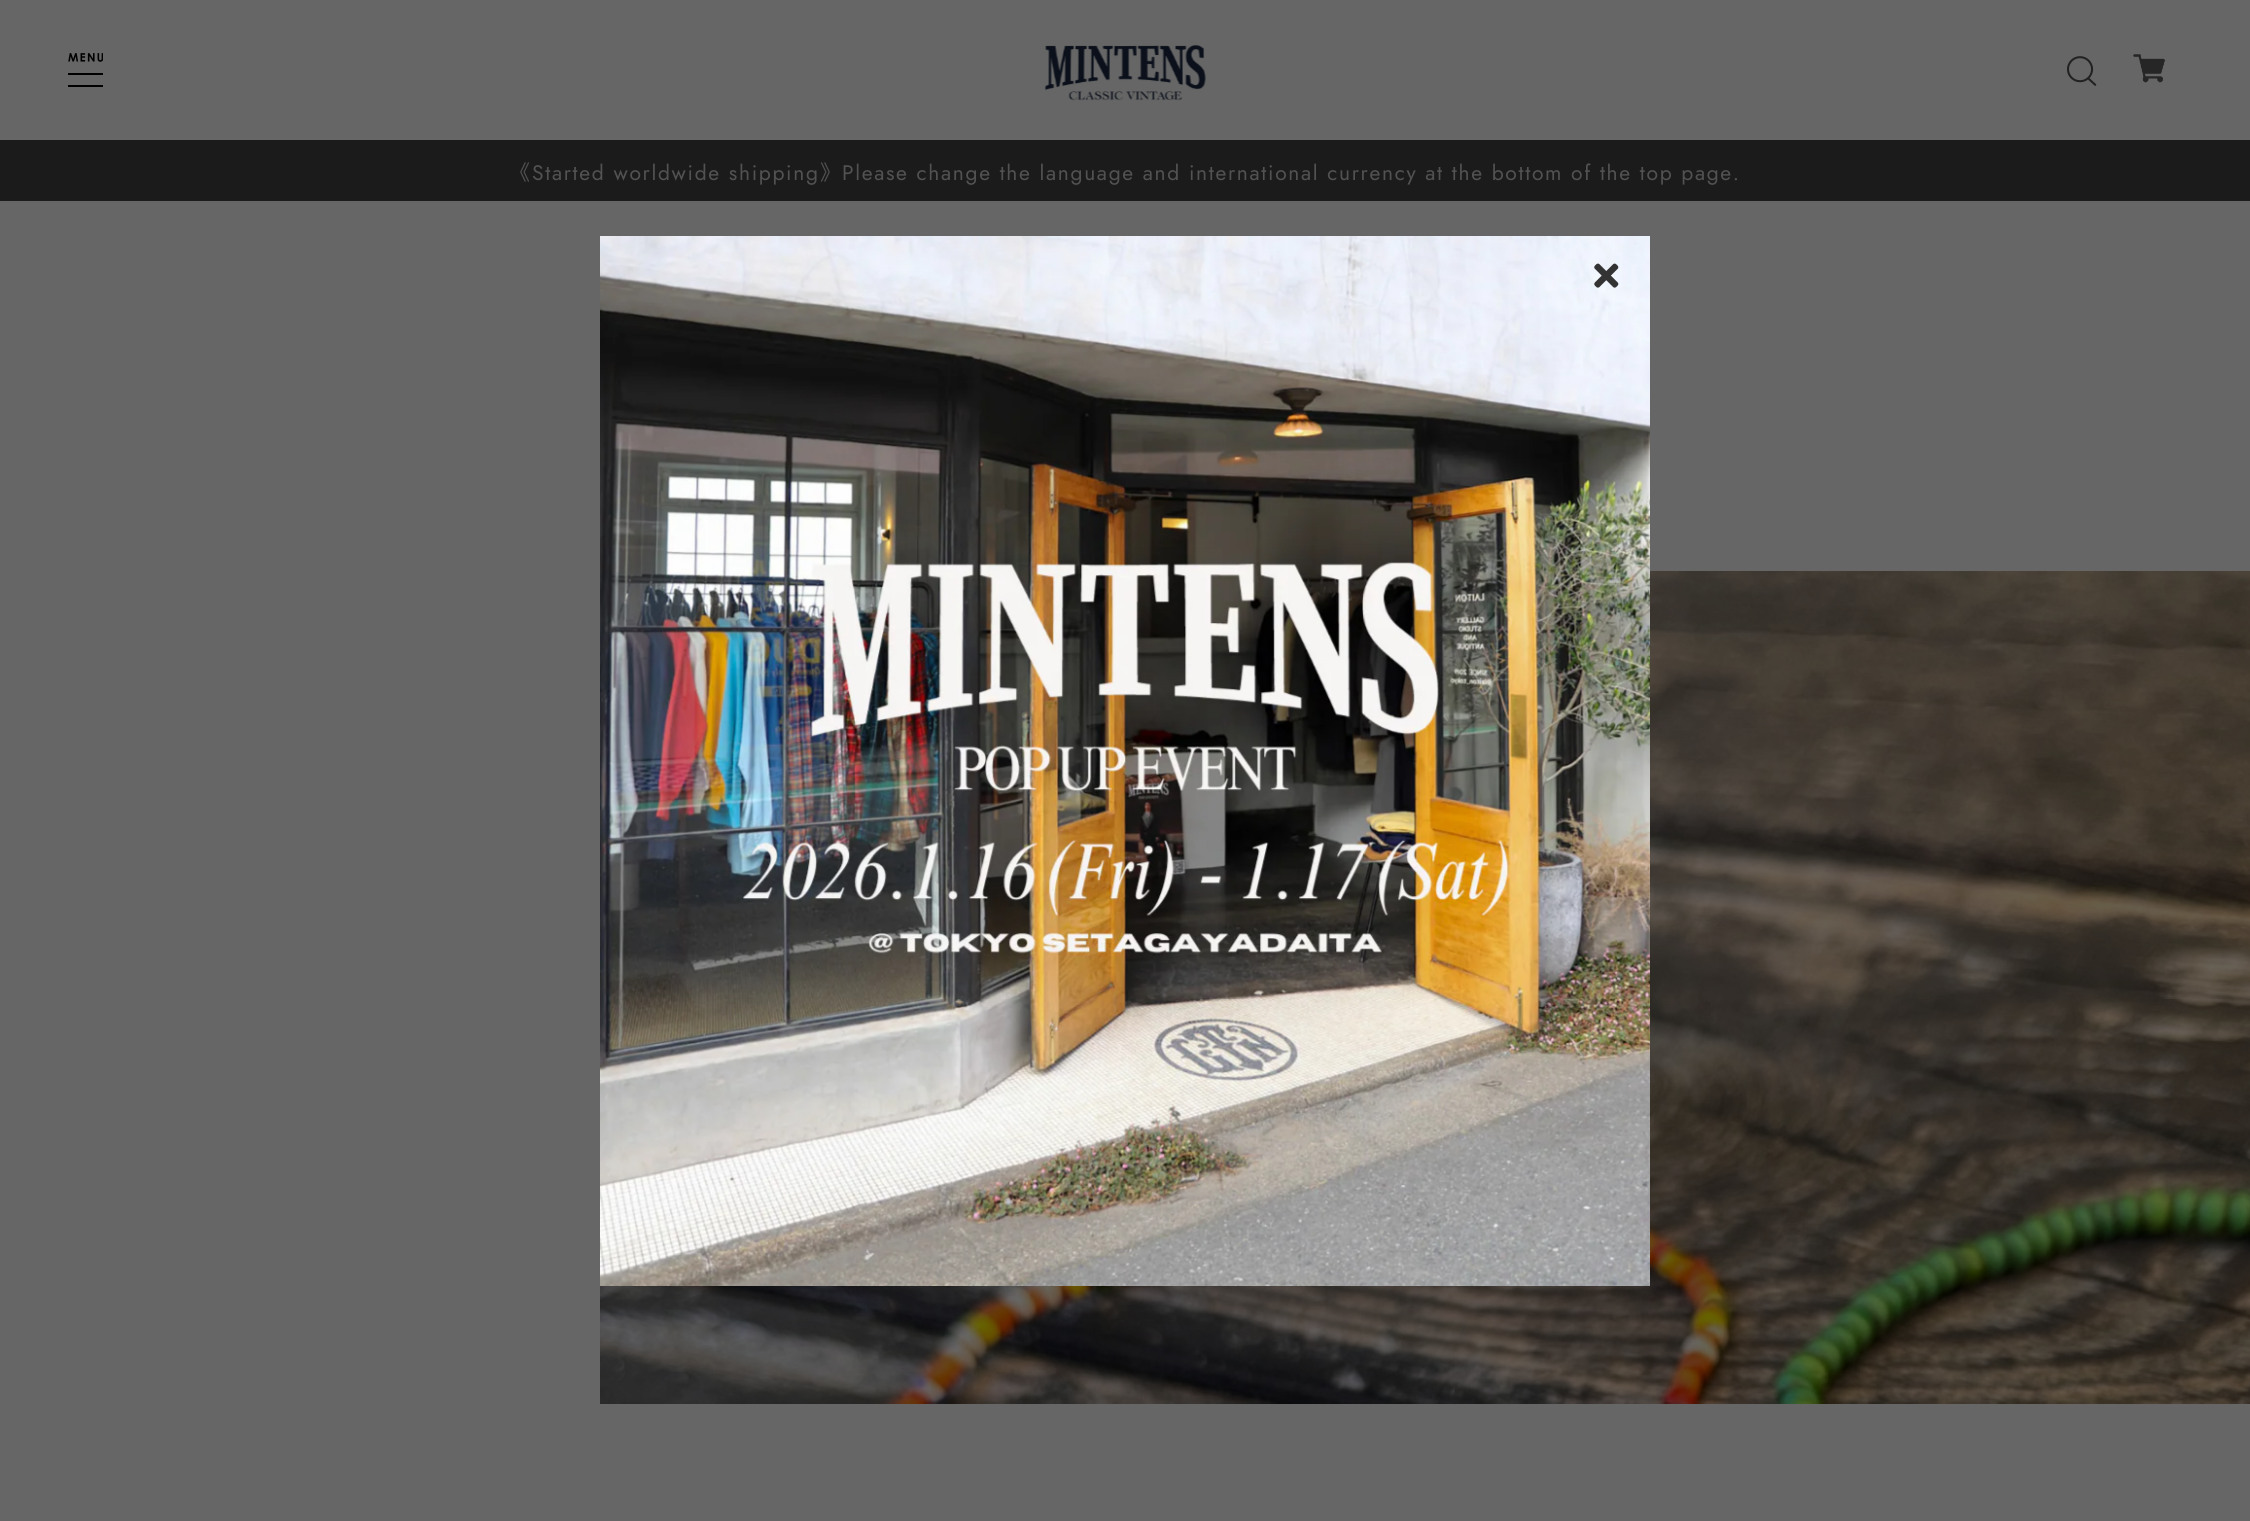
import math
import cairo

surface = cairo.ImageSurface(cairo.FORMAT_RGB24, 2250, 1521)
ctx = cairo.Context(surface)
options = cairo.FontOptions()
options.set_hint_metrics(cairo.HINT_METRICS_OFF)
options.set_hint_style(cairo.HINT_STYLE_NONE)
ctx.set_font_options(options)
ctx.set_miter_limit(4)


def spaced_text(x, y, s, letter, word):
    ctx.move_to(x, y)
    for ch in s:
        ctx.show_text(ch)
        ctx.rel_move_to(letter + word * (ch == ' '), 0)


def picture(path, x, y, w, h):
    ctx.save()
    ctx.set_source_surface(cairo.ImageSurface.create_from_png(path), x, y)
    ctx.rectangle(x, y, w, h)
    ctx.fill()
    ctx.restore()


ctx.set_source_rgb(0.4, 0.4, 0.4)
ctx.paint()
picture("img1.png", 68, 53, 35, 34)
picture("img2.png", 1044, 44, 162, 57)
picture("img3.png", 2067, 56, 30, 30)
picture("img4.png", 2133, 54, 32, 29)
ctx.set_source_rgb(0.106, 0.106, 0.106)
ctx.rectangle(0, 140, 2250, 61)
ctx.fill()
ctx.select_font_face("Noto Sans JP")
ctx.set_font_size(21)
ctx.set_source_rgb(0.322, 0.322, 0.322)
spaced_text(509, 180, "《", 1.68, 0)
ctx.select_font_face("Jost")
spaced_text(532, 180, "Started worldwide shipping", 1.68, 0)
ctx.select_font_face("Noto Sans JP")
spaced_text(820, 180, "》", 1.68, 0)
ctx.select_font_face("Jost")
spaced_text(842, 180, "Please change the language and international currency at the bottom of the top page.", 1.68, 0)
picture("img7.png", 600, 571, 1650, 833)
picture("img5.png", 600, 236, 1050, 1050)
picture("img6.png", 1594, 263, 25, 25)
surface.write_to_png("page.png")
